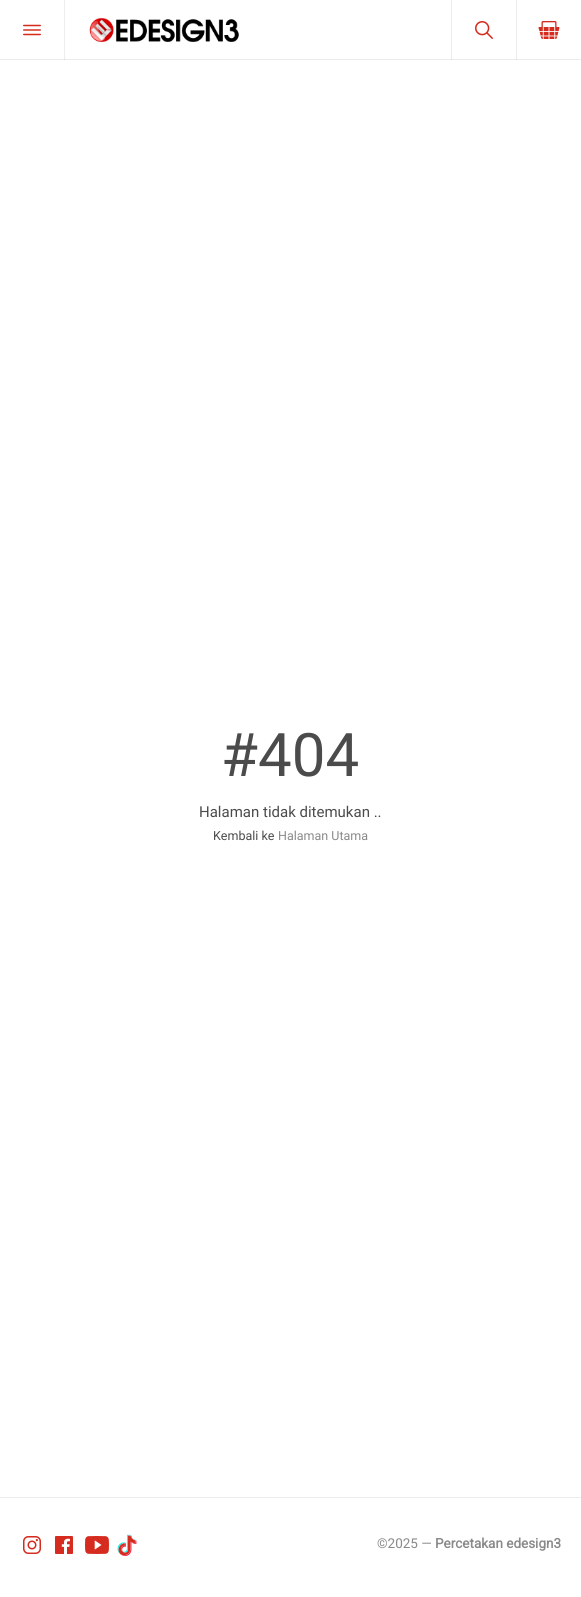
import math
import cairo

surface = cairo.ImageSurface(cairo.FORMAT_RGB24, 581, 1597)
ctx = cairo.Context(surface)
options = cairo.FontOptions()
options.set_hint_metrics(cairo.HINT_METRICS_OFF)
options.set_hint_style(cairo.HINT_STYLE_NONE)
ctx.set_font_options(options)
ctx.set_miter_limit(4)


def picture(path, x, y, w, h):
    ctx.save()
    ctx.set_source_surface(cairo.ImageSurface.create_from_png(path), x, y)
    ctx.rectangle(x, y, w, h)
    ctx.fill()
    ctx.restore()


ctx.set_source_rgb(1, 1, 1)
ctx.paint()
ctx.set_source_rgb(0.929, 0.929, 0.929)
ctx.rectangle(516, 0, 1, 60)
ctx.fill()
ctx.rectangle(451, 0, 1, 60)
ctx.fill()
ctx.rectangle(64, 0, 1, 60)
ctx.fill()
ctx.set_source_rgb(0.925, 0.925, 0.925)
ctx.rectangle(0, 59, 581, 1)
ctx.fill()
ctx.set_source_rgb(0.859, 0.859, 0.859)
ctx.rectangle(516, 59, 1, 1)
ctx.fill()
ctx.rectangle(451, 59, 1, 1)
ctx.fill()
ctx.rectangle(64, 59, 1, 1)
ctx.fill()
picture("img1.png", 23, 24, 18, 12)
picture("img2.png", 89, 18, 150, 24)
picture("img3.png", 475, 21, 18, 18)
picture("img4.png", 538, 21, 22, 18)
ctx.select_font_face("Roboto")
ctx.set_font_size(60)
ctx.set_source_rgb(0.294, 0.294, 0.294)
ctx.move_to(221, 776)
ctx.show_text("#404")
ctx.set_font_size(15)
ctx.move_to(199, 817)
ctx.show_text("Halaman tidak ditemukan ..")
ctx.set_font_size(12.5)
ctx.move_to(213, 840)
ctx.show_text("Kembali ke")
ctx.set_source_rgb(0.541, 0.541, 0.541)
ctx.move_to(278, 840)
ctx.show_text("Halaman Utama")
ctx.set_source_rgb(0.925, 0.925, 0.925)
ctx.rectangle(0, 1497, 581, 1)
ctx.fill()
picture("img5.png", 23, 1536, 18, 18)
picture("img6.png", 55, 1536, 18, 18)
picture("img7.png", 85, 1536, 24, 18)
picture("img8.png", 117, 1534, 20, 23)
ctx.set_font_size(13.5)
ctx.set_source_rgb(0.541, 0.541, 0.541)
ctx.move_to(377, 1548)
ctx.show_text("©2025 —")
ctx.select_font_face("Roboto", cairo.FONT_SLANT_NORMAL, cairo.FONT_WEIGHT_BOLD)
ctx.move_to(435, 1548)
ctx.show_text("Percetakan edesign3")
surface.write_to_png("page.png")
